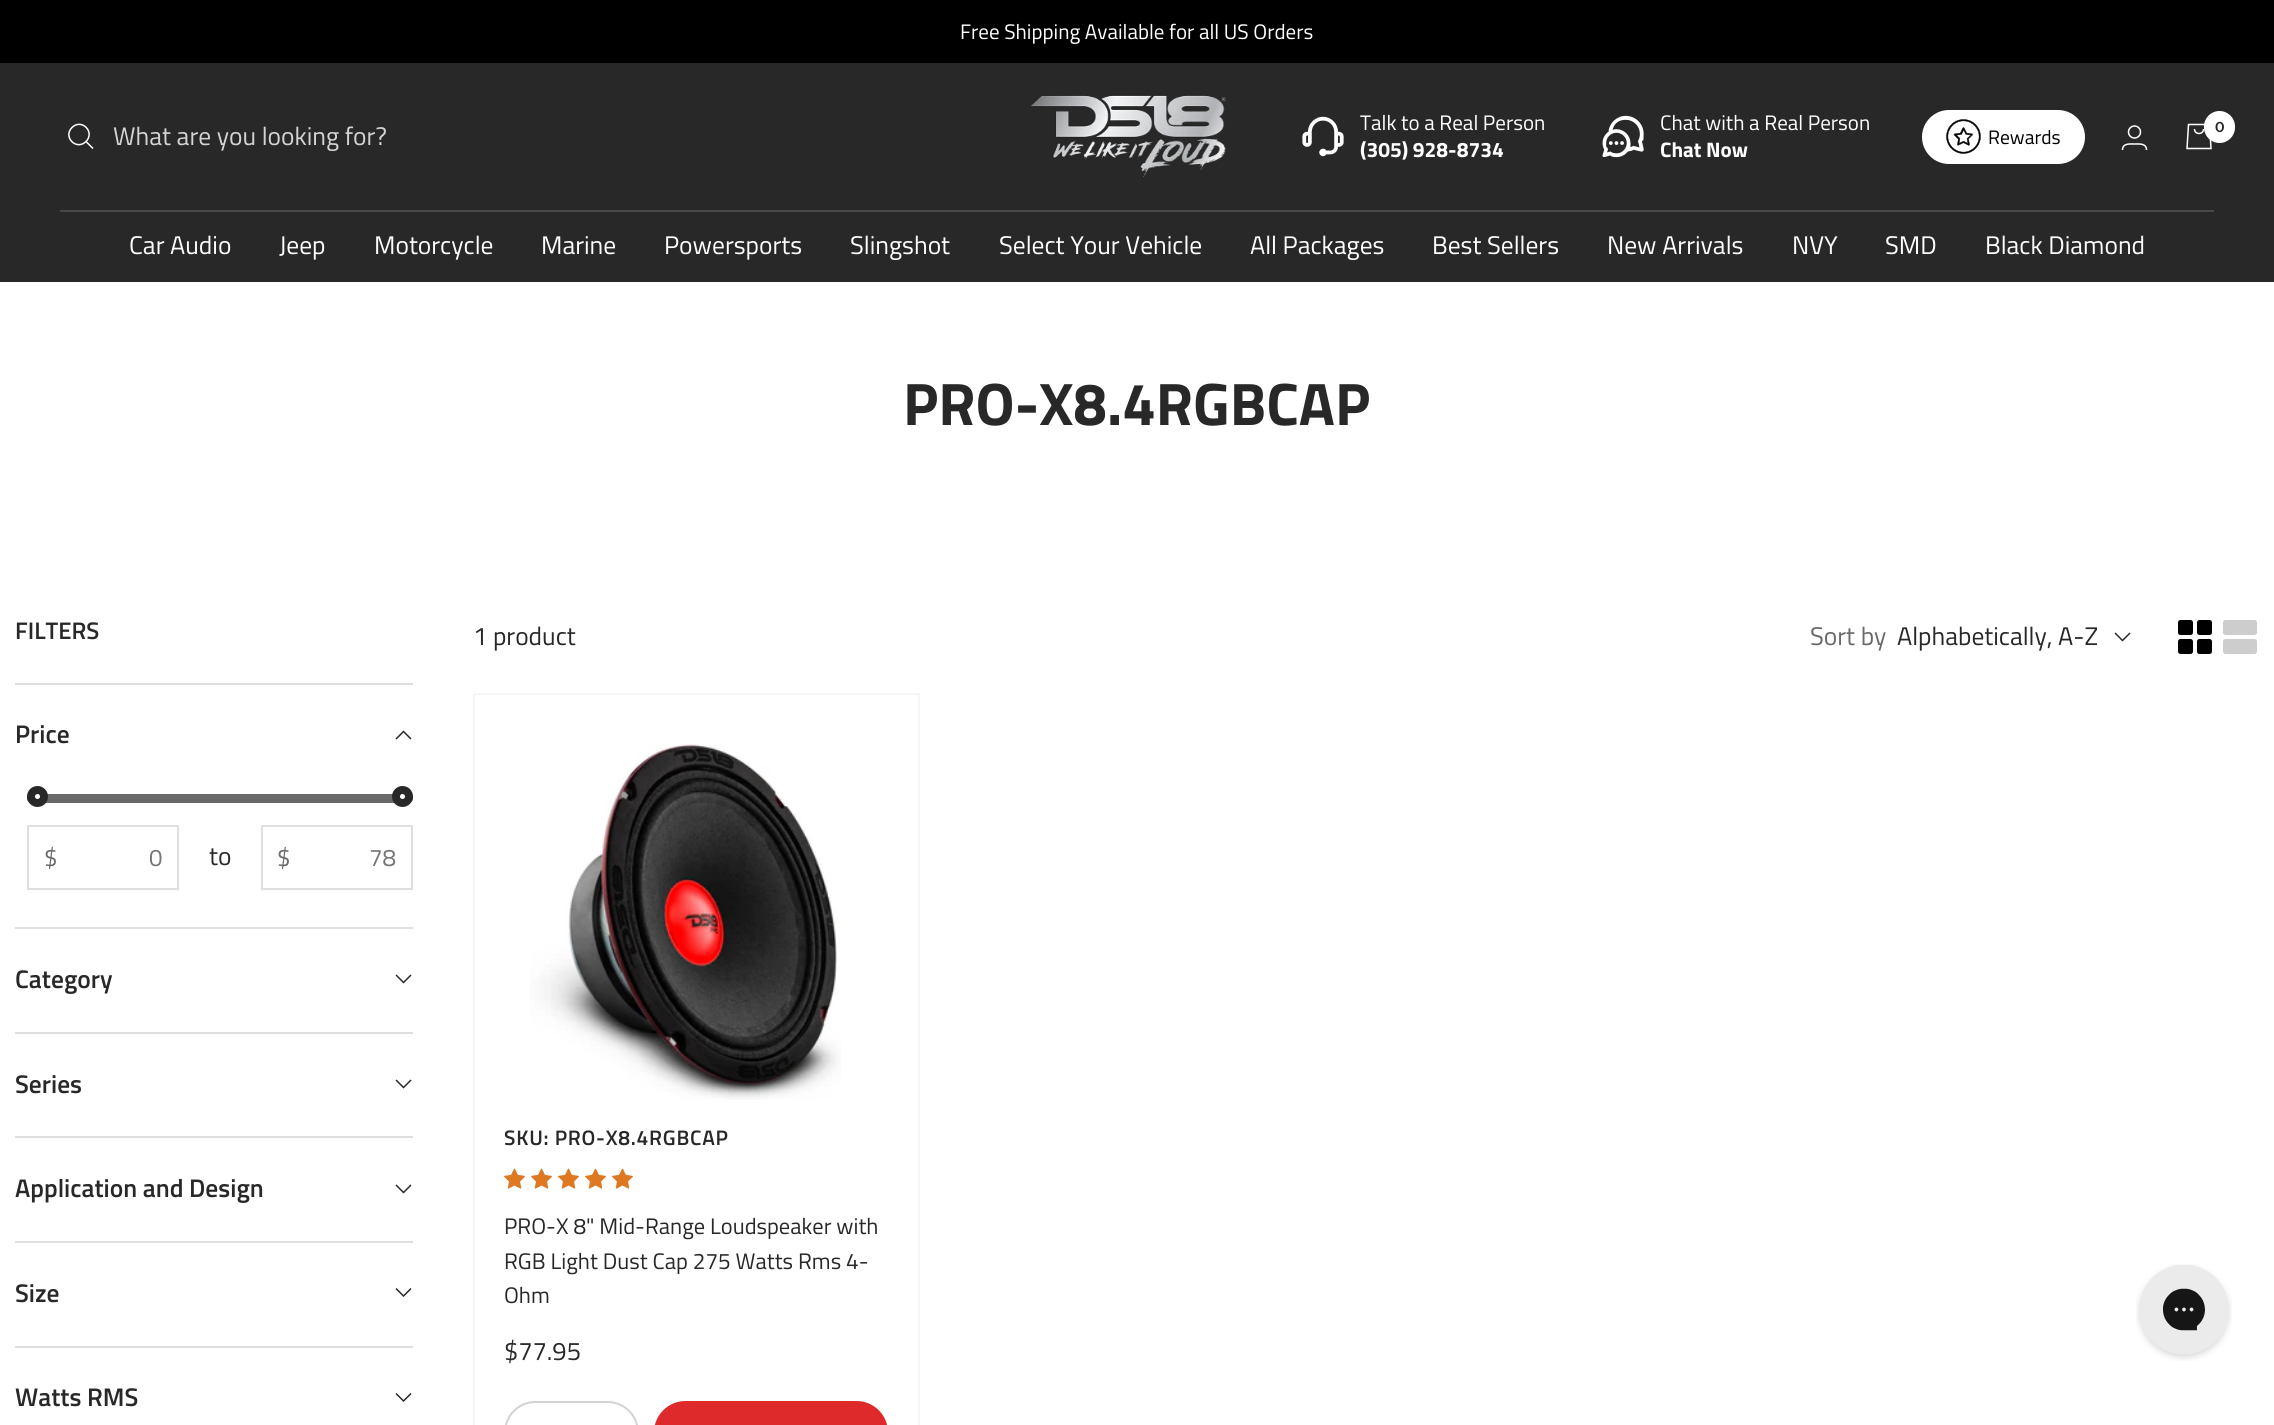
import math
import cairo

surface = cairo.ImageSurface(cairo.FORMAT_RGB24, 2274, 1425)
ctx = cairo.Context(surface)
options = cairo.FontOptions()
options.set_hint_metrics(cairo.HINT_METRICS_OFF)
options.set_hint_style(cairo.HINT_STYLE_NONE)
ctx.set_font_options(options)
ctx.set_miter_limit(4)


def spaced_text(x, y, s, letter, word):
    ctx.move_to(x, y)
    for ch in s:
        ctx.show_text(ch)
        ctx.rel_move_to(letter + word * (ch == ' '), 0)


def round_rect(x, y, w, h, r):
    ctx.new_sub_path()
    for i, (u, v) in enumerate([(x + w - r, y + h - r), (x + r, y + h - r), (x + r, y + r), (x + w - r, y + r)]):
        ctx.arc(u, v, r, i * math.pi / 2, (i + 1) * math.pi / 2)
    ctx.close_path()


def picture(path, x, y, w, h):
    ctx.save()
    ctx.set_source_surface(cairo.ImageSurface.create_from_png(path), x, y)
    ctx.rectangle(x, y, w, h)
    ctx.fill()
    ctx.restore()


ctx.set_source_rgb(1, 1, 1)
ctx.paint()
ctx.set_source_rgb(0, 0, 0)
ctx.rectangle(0, 0, 2274, 63)
ctx.fill()
ctx.select_font_face("Titillium Web")
ctx.set_font_size(21)
ctx.set_source_rgb(1, 1, 1)
ctx.move_to(960, 39)
ctx.show_text("Free Shipping Available for all US Orders")
ctx.set_source_rgb(0.157, 0.157, 0.157)
ctx.rectangle(0, 63, 2274, 219)
ctx.fill()
ctx.new_path()
ctx.move_to(86, 141.5)
ctx.curve_to(95.5, 132, 81.5, 118, 72, 127.5)
ctx.curve_to(62.5, 137, 76.5, 151, 86, 141.5)
ctx.close_path()
ctx.move_to(86, 141.5)
ctx.line_to(93, 148.5)
ctx.set_source_rgb(1, 1, 1)
ctx.set_line_width(1.5)
ctx.stroke()
ctx.set_font_size(25.5)
ctx.set_source_rgb(0.831, 0.831, 0.831)
ctx.move_to(113, 145)
ctx.show_text("What are you looking for?")
picture("img1.png", 1031, 95, 196, 82)
picture("img2.png", 1302, 116, 42, 41)
ctx.set_font_size(21)
ctx.set_source_rgb(1, 1, 1)
ctx.move_to(1360, 130)
ctx.show_text("Talk to a Real Person")
ctx.select_font_face("Titillium Web", cairo.FONT_SLANT_NORMAL, cairo.FONT_WEIGHT_BOLD)
ctx.move_to(1360, 157)
ctx.show_text("(305) 928-8734")
picture("img3.png", 1602, 115, 42, 43)
ctx.select_font_face("Titillium Web")
ctx.move_to(1660, 130)
ctx.show_text("Chat with a Real Person")
ctx.select_font_face("Titillium Web", cairo.FONT_SLANT_NORMAL, cairo.FONT_WEIGHT_BOLD)
ctx.move_to(1660, 157)
ctx.show_text("Chat Now")
round_rect(1923, 111, 161, 52, 26)
ctx.fill_preserve()
ctx.set_line_width(2)
ctx.stroke()
picture("img4.png", 1946, 119, 35, 35)
ctx.select_font_face("Titillium Web")
ctx.set_font_size(19.5)
ctx.set_source_rgb(0, 0, 0)
ctx.move_to(1988, 144)
ctx.show_text("Rewards")
ctx.new_path()
ctx.arc(2134.5, 132, 6, 0, 2 * math.pi)
ctx.set_source_rgb(1, 1, 1)
ctx.set_line_width(1.5)
ctx.stroke()
ctx.new_path()
ctx.move_to(2122.5, 150)
ctx.curve_to(2122.5, 143, 2130, 144, 2134.5, 144)
ctx.curve_to(2139, 144, 2146.5, 143, 2146.5, 150)
ctx.stroke()
ctx.new_path()
ctx.move_to(2188.5, 124.5)
ctx.line_to(2209.5, 124.5)
ctx.line_to(2211, 148.5)
ctx.line_to(2187, 148.5)
ctx.close_path()
ctx.move_to(2194.5, 129)
ctx.curve_to(2194.5, 135, 2203.5, 135, 2203.5, 129)
ctx.stroke()
round_rect(2204, 111, 31, 32, 15.5)
ctx.fill()
ctx.select_font_face("Instrument Sans SemiBold")
ctx.set_font_size(14)
ctx.set_source_rgb(0.157, 0.157, 0.157)
ctx.move_to(2215, 132)
ctx.show_text("0")
ctx.set_source_rgb(0.282, 0.282, 0.282)
ctx.rectangle(60, 210, 2154, 2)
ctx.fill()
ctx.select_font_face("Titillium Web")
ctx.set_font_size(25.5)
ctx.set_source_rgb(1, 1, 1)
ctx.move_to(129, 254)
ctx.show_text("Car Audio")
ctx.move_to(279, 254)
ctx.show_text("Jeep")
ctx.move_to(374, 254)
ctx.show_text("Motorcycle")
ctx.move_to(541, 254)
ctx.show_text("Marine")
ctx.move_to(664, 254)
ctx.show_text("Powersports")
ctx.move_to(850, 254)
ctx.show_text("Slingshot")
ctx.move_to(999, 254)
ctx.show_text("Select Your Vehicle")
ctx.move_to(1250, 254)
ctx.show_text("All Packages")
ctx.move_to(1432, 254)
ctx.show_text("Best Sellers")
ctx.move_to(1607, 254)
ctx.show_text("New Arrivals")
ctx.move_to(1792, 254)
ctx.show_text("NVY")
ctx.move_to(1885, 254)
ctx.show_text("SMD")
ctx.move_to(1985, 254)
ctx.show_text("Black Diamond")
ctx.select_font_face("Titillium Web", cairo.FONT_SLANT_NORMAL, cairo.FONT_WEIGHT_BOLD)
ctx.set_font_size(60)
ctx.set_source_rgb(0.157, 0.157, 0.157)
ctx.move_to(903, 425)
ctx.show_text("PRO-X8.4RGBCAP")
ctx.set_source_rgb(0.875, 0.875, 0.875)
ctx.rectangle(15, 683, 398, 2)
ctx.fill()
ctx.select_font_face("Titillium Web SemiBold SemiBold")
ctx.set_font_size(24)
ctx.set_source_rgb(0.157, 0.157, 0.157)
ctx.move_to(15, 639)
ctx.show_text("FILTERS")
ctx.set_font_size(25.5)
ctx.move_to(15, 743)
ctx.show_text("Price")
ctx.new_path()
ctx.move_to(411, 739)
ctx.line_to(403.5, 731.5)
ctx.line_to(396, 739)
ctx.stroke()
ctx.set_source_rgb(0.412, 0.412, 0.412)
round_rect(27, 794, 386, 9, 4.5)
ctx.fill()
ctx.set_source_rgb(1, 1, 1)
ctx.arc(37.5, 796.5, 6.5, 0, 2 * math.pi)
ctx.fill_preserve()
ctx.set_source_rgb(0.157, 0.157, 0.157)
ctx.set_line_width(8)
ctx.stroke()
ctx.set_source_rgb(1, 1, 1)
ctx.arc(402.5, 796.5, 6.5, 0, 2 * math.pi)
ctx.fill_preserve()
ctx.set_source_rgb(0.157, 0.157, 0.157)
ctx.stroke()
ctx.rectangle(28, 826, 150, 63)
ctx.set_source_rgb(0.875, 0.875, 0.875)
ctx.set_line_width(2)
ctx.stroke()
ctx.select_font_face("Titillium Web")
ctx.set_font_size(24)
ctx.set_source_rgb(0.412, 0.412, 0.412)
ctx.move_to(44, 866)
ctx.show_text("$")
ctx.set_source_rgb(0.459, 0.459, 0.459)
ctx.move_to(149, 866)
ctx.show_text("0")
ctx.set_font_size(25.5)
ctx.set_source_rgb(0.157, 0.157, 0.157)
ctx.move_to(209, 865)
ctx.show_text("to")
ctx.rectangle(262, 826, 150, 63)
ctx.set_source_rgb(0.875, 0.875, 0.875)
ctx.stroke()
ctx.set_font_size(24)
ctx.set_source_rgb(0.412, 0.412, 0.412)
ctx.move_to(277, 866)
ctx.show_text("$")
ctx.set_source_rgb(0.459, 0.459, 0.459)
ctx.move_to(369, 866)
ctx.show_text("78")
ctx.set_source_rgb(0.875, 0.875, 0.875)
ctx.rectangle(15, 927, 398, 2)
ctx.fill()
ctx.select_font_face("Titillium Web SemiBold SemiBold")
ctx.set_font_size(25.5)
ctx.set_source_rgb(0.157, 0.157, 0.157)
ctx.move_to(15, 988)
ctx.show_text("Category")
ctx.new_path()
ctx.move_to(396, 975)
ctx.line_to(403.5, 982.5)
ctx.line_to(411, 975)
ctx.set_line_width(1.5)
ctx.stroke()
ctx.set_source_rgb(0.875, 0.875, 0.875)
ctx.rectangle(15, 1032, 398, 2)
ctx.fill()
ctx.set_source_rgb(0.157, 0.157, 0.157)
ctx.move_to(15, 1093)
ctx.show_text("Series")
ctx.new_path()
ctx.move_to(396, 1080)
ctx.line_to(403.5, 1087.5)
ctx.line_to(411, 1080)
ctx.stroke()
ctx.set_source_rgb(0.875, 0.875, 0.875)
ctx.rectangle(15, 1136, 398, 2)
ctx.fill()
ctx.set_source_rgb(0.157, 0.157, 0.157)
ctx.move_to(15, 1197)
ctx.show_text("Application and Design")
ctx.new_path()
ctx.move_to(396, 1185)
ctx.line_to(403.5, 1192.5)
ctx.line_to(411, 1185)
ctx.stroke()
ctx.set_source_rgb(0.875, 0.875, 0.875)
ctx.rectangle(15, 1241, 398, 2)
ctx.fill()
ctx.set_source_rgb(0.157, 0.157, 0.157)
ctx.move_to(15, 1302)
ctx.show_text("Size")
ctx.new_path()
ctx.move_to(396, 1288.5)
ctx.line_to(403.5, 1296)
ctx.line_to(411, 1288.5)
ctx.stroke()
ctx.set_source_rgb(0.875, 0.875, 0.875)
ctx.rectangle(15, 1346, 398, 2)
ctx.fill()
ctx.set_source_rgb(0.157, 0.157, 0.157)
ctx.move_to(15, 1406)
ctx.show_text("Watts RMS")
ctx.new_path()
ctx.move_to(396, 1393.5)
ctx.line_to(403.5, 1401)
ctx.line_to(411, 1393.5)
ctx.stroke()
ctx.select_font_face("Titillium Web")
ctx.move_to(473, 645)
ctx.show_text("1 product")
ctx.set_source_rgb(0.412, 0.412, 0.412)
ctx.move_to(1810, 645)
ctx.show_text("Sort by")
ctx.set_source_rgb(0.157, 0.157, 0.157)
ctx.move_to(1897, 645)
ctx.show_text("Alphabetically, A-Z")
ctx.new_path()
ctx.move_to(2115, 633)
ctx.line_to(2122.5, 640.5)
ctx.line_to(2130, 633)
ctx.stroke()
ctx.set_source_rgb(0, 0, 0)
round_rect(2178, 620, 15, 15, 2.5)
ctx.fill()
round_rect(2197, 620, 15, 15, 2.5)
ctx.fill()
round_rect(2178, 639, 15, 15, 2.5)
ctx.fill()
round_rect(2197, 639, 15, 15, 2.5)
ctx.fill()
ctx.set_source_rgb(0.804, 0.804, 0.804)
round_rect(2223, 620, 34, 15, 2.5)
ctx.fill()
round_rect(2223, 639, 34, 15, 2.5)
ctx.fill()
ctx.rectangle(474, 694, 445, 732)
ctx.set_source_rgb(0.961, 0.961, 0.961)
ctx.set_line_width(2)
ctx.stroke()
picture("img5.png", 530, 744, 311, 356)
ctx.select_font_face("Titillium Web SemiBold SemiBold")
ctx.set_font_size(21)
ctx.set_source_rgb(0.157, 0.157, 0.157)
spaced_text(504, 1145, "SKU: PRO-X8.4RGBCAP", 0.75, 0)
picture("img6.png", 504, 1168, 21, 21)
picture("img6.png", 531, 1168, 21, 21)
picture("img6.png", 558, 1168, 21, 21)
picture("img6.png", 585, 1168, 21, 21)
picture("img6.png", 612, 1168, 21, 21)
ctx.select_font_face("Titillium Web")
ctx.set_font_size(22.5)
ctx.move_to(504, 1234)
ctx.show_text("PRO-X 8\" Mid-Range Loudspeaker with")
ctx.move_to(504, 1269)
ctx.show_text("RGB Light Dust Cap 275 Watts Rms 4-")
ctx.move_to(504, 1303)
ctx.show_text("Ohm")
ctx.set_font_size(25.5)
ctx.move_to(504, 1360)
ctx.show_text("$77.95")
round_rect(505, 1402, 133, 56, 30.5)
ctx.set_source_rgb(0.824, 0.824, 0.824)
ctx.stroke()
ctx.set_source_rgb(0.871, 0.165, 0.165)
round_rect(654, 1401, 234, 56, 31.5)
ctx.fill()
picture("img7.png", 2136, 1264, 96, 97)
surface.write_to_png("page.png")
